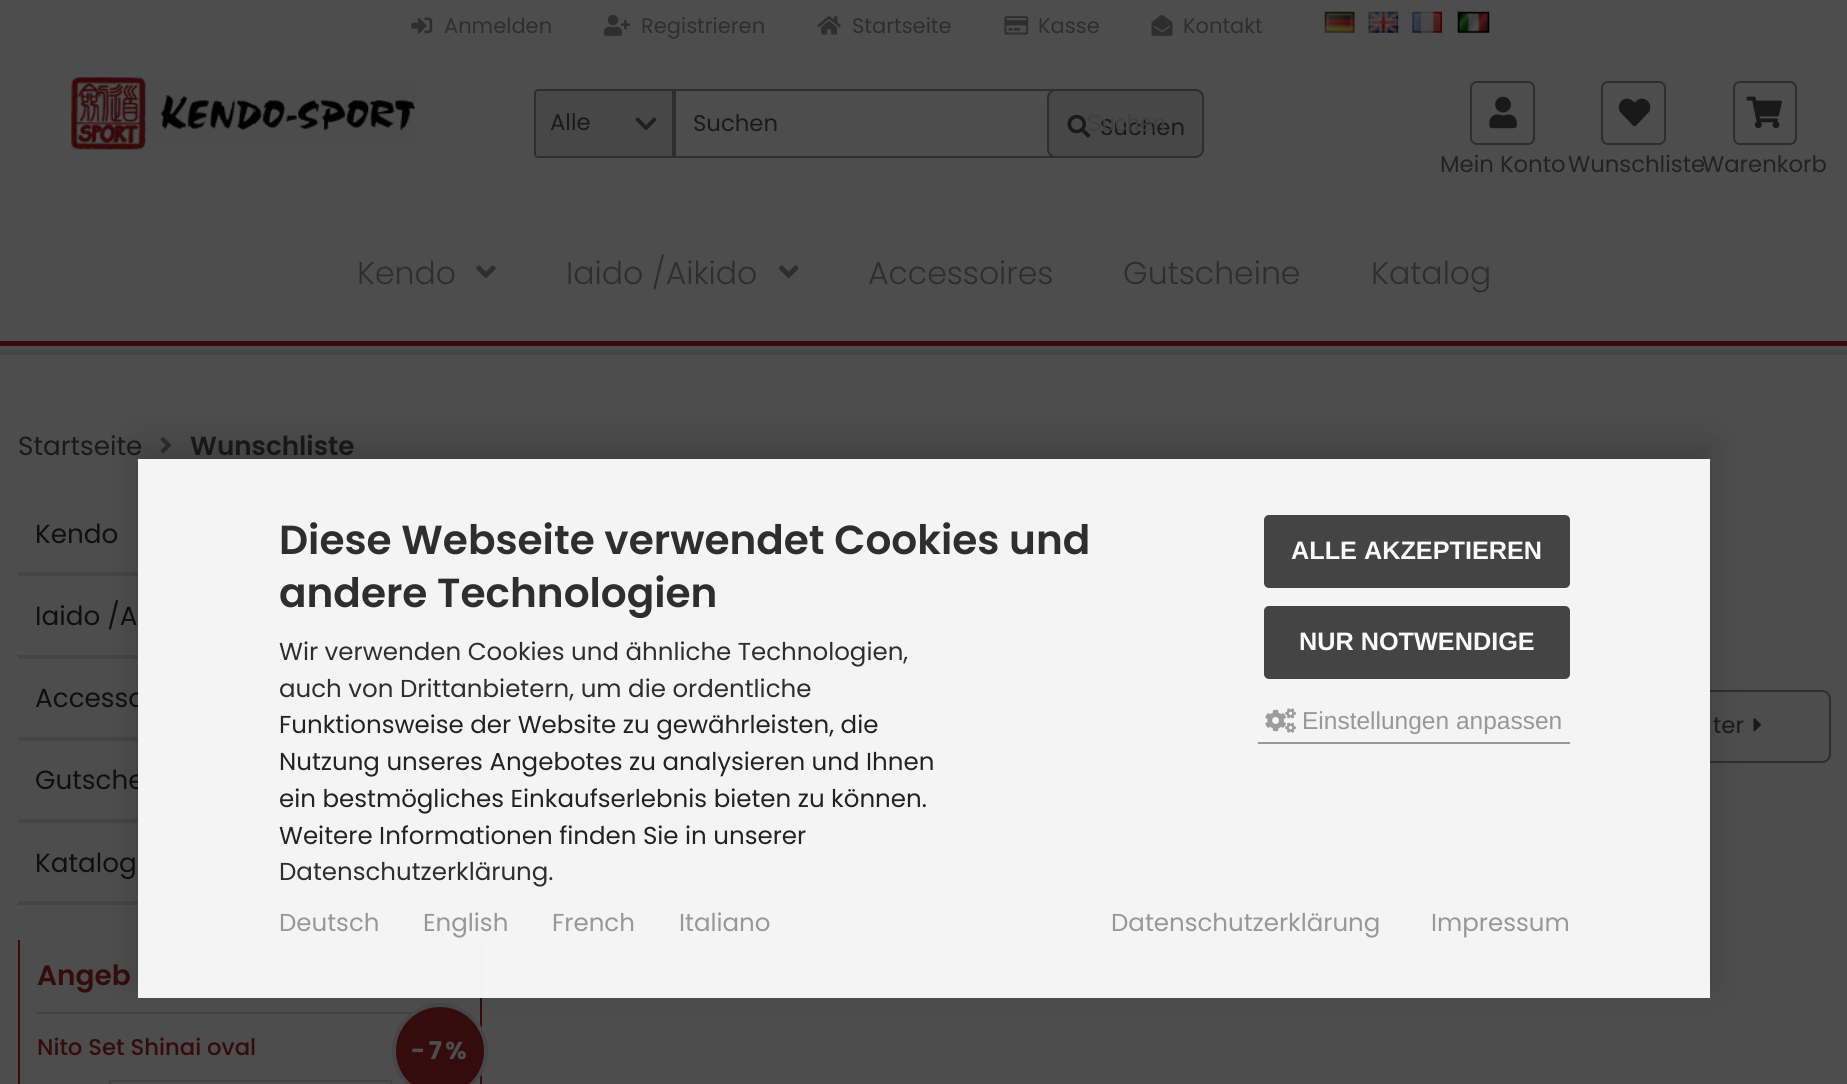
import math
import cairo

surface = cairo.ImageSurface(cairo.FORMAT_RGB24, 1847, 1084)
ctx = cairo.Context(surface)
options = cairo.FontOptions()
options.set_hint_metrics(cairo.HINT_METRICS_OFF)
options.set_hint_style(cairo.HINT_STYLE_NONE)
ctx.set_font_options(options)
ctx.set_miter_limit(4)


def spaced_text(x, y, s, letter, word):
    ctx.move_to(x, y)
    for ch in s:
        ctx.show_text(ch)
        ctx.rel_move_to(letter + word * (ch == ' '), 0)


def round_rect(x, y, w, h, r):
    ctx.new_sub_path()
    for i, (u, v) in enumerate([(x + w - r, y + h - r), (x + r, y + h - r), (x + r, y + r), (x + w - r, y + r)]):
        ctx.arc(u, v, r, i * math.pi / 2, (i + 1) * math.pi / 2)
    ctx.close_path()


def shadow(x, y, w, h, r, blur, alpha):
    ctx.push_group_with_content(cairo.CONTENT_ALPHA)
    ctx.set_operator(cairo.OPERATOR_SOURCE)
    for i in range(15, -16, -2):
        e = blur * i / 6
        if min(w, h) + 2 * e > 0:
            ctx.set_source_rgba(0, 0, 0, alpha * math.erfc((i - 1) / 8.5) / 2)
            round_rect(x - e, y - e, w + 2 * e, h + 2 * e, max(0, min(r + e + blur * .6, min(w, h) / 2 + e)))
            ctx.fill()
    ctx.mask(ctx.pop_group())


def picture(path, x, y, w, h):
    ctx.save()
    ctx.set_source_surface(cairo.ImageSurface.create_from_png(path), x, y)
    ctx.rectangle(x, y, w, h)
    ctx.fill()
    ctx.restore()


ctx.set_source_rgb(0.302, 0.302, 0.302)
ctx.paint()
picture("img1.png", 411, 17, 22, 17)
ctx.select_font_face("Poppins")
ctx.set_font_size(21)
ctx.set_source_rgb(0.18, 0.18, 0.18)
ctx.move_to(444, 33)
ctx.show_text("Anmelden")
picture("img2.png", 603, 14, 27, 22)
ctx.move_to(641, 33)
ctx.show_text("Registrieren")
picture("img3.png", 817, 16, 24, 19)
ctx.move_to(852, 33)
ctx.show_text("Startseite")
picture("img4.png", 1004, 16, 25, 19)
ctx.move_to(1038, 33)
ctx.show_text("Kasse")
picture("img5.png", 1151, 15, 22, 21)
ctx.move_to(1183, 33)
ctx.show_text("Kontakt")
picture("img6.png", 1324, 11, 31, 22)
picture("img7.png", 1368, 11, 31, 22)
picture("img8.png", 1412, 11, 30, 22)
picture("img9.png", 1457, 11, 33, 22)
picture("img10.png", 71, 77, 344, 73)
ctx.set_source_rgb(0.278, 0.278, 0.278)
ctx.new_path()
ctx.move_to(538, 90)
ctx.line_to(673, 90)
ctx.line_to(673, 157)
ctx.line_to(538, 157)
ctx.curve_to(536.5, 157, 535, 155.5, 535, 154)
ctx.line_to(535, 93)
ctx.curve_to(535, 91.5, 536.5, 90, 538, 90)
ctx.close_path()
ctx.fill_preserve()
ctx.set_source_rgb(0.18, 0.18, 0.18)
ctx.stroke()
ctx.set_font_size(22.75)
ctx.set_source_rgb(0.102, 0.102, 0.102)
ctx.move_to(550, 130)
ctx.show_text("Alle")
picture("img11.png", 635, 117, 22, 14)
ctx.new_path()
ctx.move_to(675, 90)
ctx.line_to(1195, 90)
ctx.curve_to(1199.5, 90, 1203, 93.5, 1203, 98)
ctx.line_to(1203, 149)
ctx.curve_to(1203, 153.5, 1199.5, 157, 1195, 157)
ctx.line_to(675, 157)
ctx.close_path()
ctx.set_source_rgb(0.18, 0.18, 0.18)
ctx.stroke()
ctx.set_source_rgb(0.102, 0.102, 0.102)
ctx.move_to(693, 131)
ctx.show_text("Suchen")
ctx.set_source_rgb(0.278, 0.278, 0.278)
round_rect(1048, 90, 155, 67, 8)
ctx.fill_preserve()
ctx.set_source_rgb(0.18, 0.18, 0.18)
ctx.stroke()
picture("img12.png", 1067, 114, 24, 24)
ctx.set_source_rgb(0.102, 0.102, 0.102)
ctx.move_to(1100, 135)
ctx.show_text("Suchen")
ctx.select_font_face("Liberation Sans")
ctx.set_font_size(23.5)
ctx.set_source_rgb(0.247, 0.247, 0.247)
ctx.move_to(1086, 131)
ctx.show_text("Suchen")
round_rect(1471, 82, 63, 62, 6)
ctx.set_source_rgb(0.18, 0.18, 0.18)
ctx.stroke()
picture("img13.png", 1489, 96, 28, 33)
ctx.select_font_face("Poppins")
ctx.set_font_size(22.75)
ctx.set_source_rgb(0.133, 0.133, 0.133)
ctx.move_to(1440, 172)
ctx.show_text("Mein Konto")
round_rect(1602, 82, 63, 62, 6)
ctx.set_source_rgb(0.18, 0.18, 0.18)
ctx.stroke()
picture("img14.png", 1618, 98, 33, 29)
ctx.set_source_rgb(0.133, 0.133, 0.133)
ctx.move_to(1702, 172)
ctx.show_text("Warenkorb")
ctx.move_to(1568, 172)
ctx.show_text("Wunschliste")
round_rect(1734, 82, 62, 62, 6)
ctx.set_source_rgb(0.18, 0.18, 0.18)
ctx.stroke()
picture("img15.png", 1746, 96, 36, 33)
ctx.select_font_face("Poppins Light")
ctx.set_font_size(31.5)
ctx.move_to(357, 284)
ctx.show_text("Kendo")
picture("img16.png", 476, 265, 20, 13)
ctx.move_to(566, 284)
ctx.show_text("Iaido /Aikido")
picture("img17.png", 778, 265, 21, 13)
ctx.move_to(868, 284)
ctx.show_text("Accessoires")
ctx.move_to(1123, 284)
ctx.show_text("Gutscheine")
ctx.move_to(1371, 284)
ctx.show_text("Katalog")
ctx.set_source_rgb(0.204, 0.047, 0.047)
ctx.rectangle(0, 341, 1847, 5)
ctx.fill()
ctx.set_source_rgb(0.271, 0.271, 0.271)
ctx.rectangle(0, 350, 1847, 5)
ctx.fill()
ctx.select_font_face("Poppins")
ctx.set_font_size(26.25)
ctx.set_source_rgb(0.102, 0.102, 0.102)
ctx.move_to(18, 455)
ctx.show_text("Startseite")
picture("img18.png", 160, 437, 11, 17)
ctx.select_font_face("Poppins SemiBold")
ctx.move_to(190, 455)
ctx.show_text("Wunschliste")
ctx.select_font_face("Poppins")
ctx.set_source_rgb(0.059, 0.059, 0.059)
ctx.move_to(35, 543)
ctx.show_text("Kendo")
picture("img19.png", 461, 524, 12, 17)
ctx.set_source_rgb(0.271, 0.271, 0.271)
ctx.rectangle(18, 572, 463, 4)
ctx.fill()
ctx.set_source_rgb(0.059, 0.059, 0.059)
ctx.move_to(35, 625)
ctx.show_text("Iaido /A")
picture("img20.png", 461, 606, 12, 18)
ctx.set_source_rgb(0.271, 0.271, 0.271)
ctx.rectangle(18, 655, 463, 4)
ctx.fill()
ctx.set_source_rgb(0.059, 0.059, 0.059)
ctx.move_to(35, 707)
ctx.show_text("Accesso")
picture("img21.png", 461, 689, 12, 17)
ctx.set_source_rgb(0.271, 0.271, 0.271)
ctx.rectangle(18, 737, 463, 4)
ctx.fill()
ctx.set_source_rgb(0.059, 0.059, 0.059)
ctx.move_to(35, 789)
ctx.show_text("Gutsche")
picture("img22.png", 461, 771, 12, 17)
ctx.set_source_rgb(0.271, 0.271, 0.271)
ctx.rectangle(18, 819, 463, 4)
ctx.fill()
ctx.rectangle(18, 901, 463, 4)
ctx.fill()
ctx.set_source_rgb(0.059, 0.059, 0.059)
ctx.move_to(35, 872)
ctx.show_text("Katalog")
picture("img19.png", 461, 853, 12, 17)
ctx.set_source_rgb(0.204, 0.047, 0.047)
ctx.rectangle(480, 940, 2, 144)
ctx.fill()
ctx.rectangle(18, 940, 2, 144)
ctx.fill()
ctx.select_font_face("Poppins SemiBold")
ctx.set_font_size(28)
ctx.move_to(37, 985)
ctx.show_text("Angeb")
ctx.set_source_rgb(0.259, 0.259, 0.259)
ctx.rectangle(37, 1012, 375, 2)
ctx.fill()
ctx.select_font_face("Poppins Medium")
ctx.set_font_size(22.75)
ctx.set_source_rgb(0.204, 0.047, 0.047)
ctx.move_to(37, 1055)
ctx.show_text("Nito Set Shinai oval")
ctx.new_path()
ctx.arc(440, 1051, 46, 0, 2 * math.pi)
ctx.fill_preserve()
ctx.set_source_rgb(0.278, 0.278, 0.278)
ctx.set_line_width(4)
ctx.stroke()
ctx.select_font_face("Poppins", cairo.FONT_SLANT_NORMAL, cairo.FONT_WEIGHT_BOLD)
ctx.set_font_size(24.5)
ctx.set_source_rgb(0.302, 0.302, 0.302)
spaced_text(411, 1059, "-7%", 3.5, 0)
ctx.rectangle(110, 1081, 281, 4)
ctx.set_source_rgb(0.259, 0.259, 0.259)
ctx.set_line_width(2)
ctx.stroke()
round_rect(1604, 691, 226, 71, 8)
ctx.set_source_rgb(0.18, 0.18, 0.18)
ctx.stroke()
ctx.select_font_face("Poppins")
ctx.set_font_size(22.75)
ctx.set_source_rgb(0.102, 0.102, 0.102)
ctx.move_to(1713, 733)
ctx.show_text("ter")
picture("img23.png", 1753, 718, 8, 14)
ctx.save()
ctx.set_fill_rule(cairo.FILL_RULE_EVEN_ODD)
ctx.new_path()
ctx.move_to(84, 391)
ctx.line_to(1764, 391)
ctx.line_to(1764, 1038)
ctx.line_to(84, 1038)
ctx.close_path()
ctx.move_to(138, 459)
ctx.line_to(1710, 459)
ctx.line_to(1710, 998)
ctx.line_to(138, 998)
ctx.close_path()
ctx.clip()
ctx.set_source_rgb(0, 0, 0)
shadow(138, 445, 1572, 539, 0, 17.5, 0.19)
ctx.restore()
ctx.set_source_rgba(0.976, 0.976, 0.976, 0.97)
ctx.rectangle(138, 459, 1572, 539)
ctx.fill()
ctx.select_font_face("Poppins SemiBold")
ctx.set_font_size(40.6)
ctx.set_source_rgb(0.18, 0.18, 0.18)
ctx.move_to(279, 554)
ctx.show_text("Diese Webseite verwendet Cookies und")
ctx.move_to(279, 607)
ctx.show_text("andere Technologien")
ctx.select_font_face("Poppins")
ctx.set_font_size(24.5)
ctx.move_to(279, 660)
ctx.show_text("Wir verwenden Cookies und ähnliche Technologien,")
ctx.move_to(279, 697)
ctx.show_text("auch von Drittanbietern, um die ordentliche")
ctx.set_source_rgb(0.133, 0.133, 0.133)
ctx.move_to(279, 733)
ctx.show_text("Funktionsweise der Website zu gewährleisten, die")
ctx.move_to(279, 770)
ctx.show_text("Nutzung unseres Angebotes zu analysieren und Ihnen")
ctx.move_to(279, 807)
ctx.show_text("ein bestmögliches Einkaufserlebnis bieten zu können.")
ctx.move_to(279, 844)
ctx.show_text("Weitere Informationen finden Sie in unserer")
ctx.set_source_rgb(0.18, 0.18, 0.18)
ctx.move_to(279, 880)
ctx.show_text("Datenschutzerklärung.")
ctx.set_source_rgb(0.267, 0.267, 0.267)
round_rect(1264, 515, 306, 73, 5)
ctx.fill()
ctx.select_font_face("Liberation Sans", cairo.FONT_SLANT_NORMAL, cairo.FONT_WEIGHT_BOLD)
ctx.set_font_size(25.25)
ctx.set_source_rgb(0.98, 0.98, 0.98)
ctx.move_to(1291, 559)
ctx.show_text("ALLE AKZEPTIEREN")
ctx.set_source_rgb(0.267, 0.267, 0.267)
round_rect(1264, 606, 306, 73, 5)
ctx.fill()
ctx.set_source_rgb(0.98, 0.98, 0.98)
ctx.move_to(1299, 650)
ctx.show_text("NUR NOTWENDIGE")
ctx.set_source_rgb(0.592, 0.592, 0.592)
ctx.rectangle(1258, 742, 312, 2)
ctx.fill()
picture("img24.png", 1265, 708, 31, 25)
ctx.select_font_face("Liberation Sans")
ctx.set_font_size(24.5)
ctx.move_to(1302, 729)
ctx.show_text("Einstellungen anpassen")
ctx.select_font_face("Poppins")
ctx.move_to(279, 931)
ctx.show_text("Deutsch")
ctx.move_to(423, 931)
ctx.show_text("English")
ctx.move_to(552, 931)
ctx.show_text("French")
ctx.move_to(679, 931)
ctx.show_text("Italiano")
ctx.move_to(1111, 931)
ctx.show_text("Datenschutzerklärung")
ctx.move_to(1431, 931)
ctx.show_text("Impressum")
surface.write_to_png("page.png")
